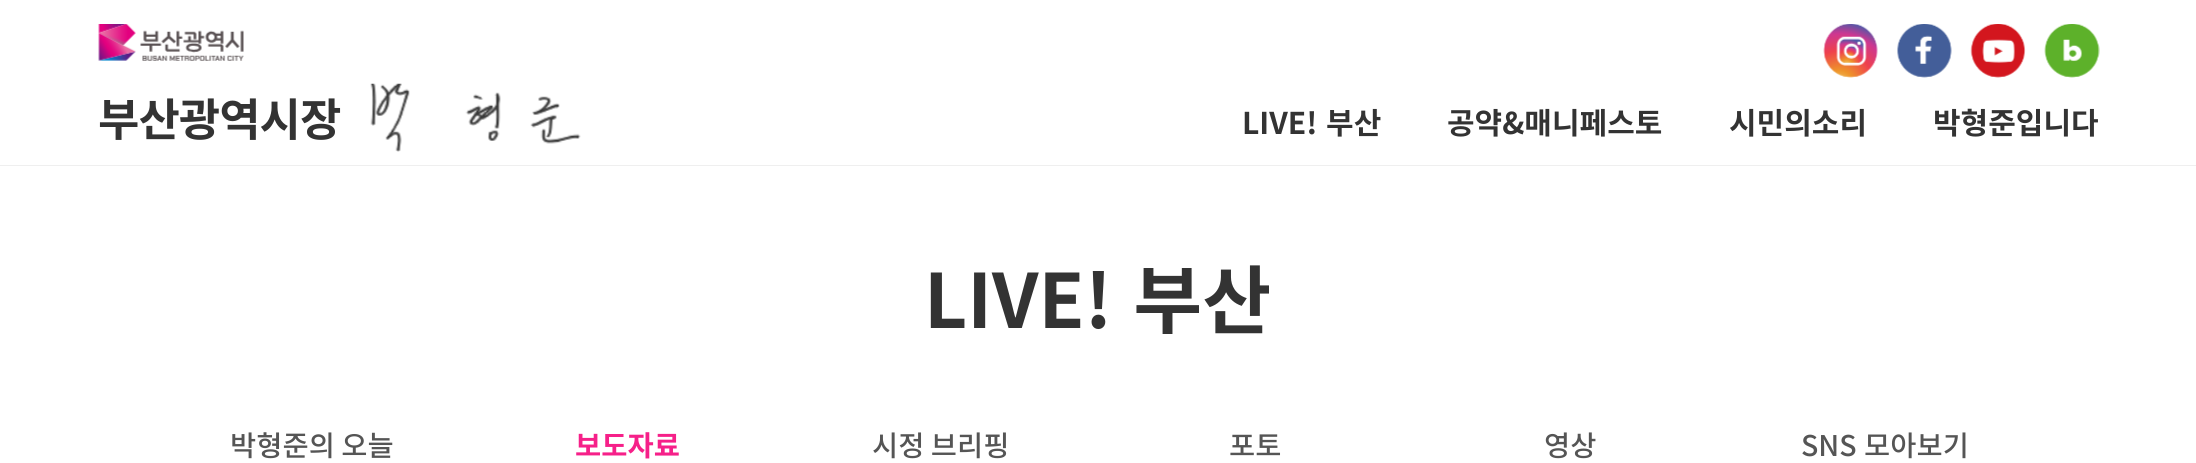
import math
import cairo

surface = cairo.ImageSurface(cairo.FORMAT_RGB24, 2196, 463)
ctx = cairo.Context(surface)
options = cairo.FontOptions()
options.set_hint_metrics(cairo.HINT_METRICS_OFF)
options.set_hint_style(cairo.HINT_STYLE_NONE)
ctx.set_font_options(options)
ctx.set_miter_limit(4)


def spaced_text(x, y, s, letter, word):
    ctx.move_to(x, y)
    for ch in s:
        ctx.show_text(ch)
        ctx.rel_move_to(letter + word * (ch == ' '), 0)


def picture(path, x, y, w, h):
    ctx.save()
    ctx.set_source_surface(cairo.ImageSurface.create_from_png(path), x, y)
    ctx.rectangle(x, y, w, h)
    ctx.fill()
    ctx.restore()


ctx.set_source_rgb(1, 1, 1)
ctx.paint()
ctx.set_source_rgb(0.937, 0.937, 0.937)
ctx.rectangle(0, 165, 2196, 1)
ctx.fill()
picture("img1.png", 98, 24, 146, 37)
picture("img2.png", 370, 83, 211, 69)
ctx.select_font_face("Noto Sans KR", cairo.FONT_SLANT_NORMAL, cairo.FONT_WEIGHT_BOLD)
ctx.set_font_size(45)
ctx.set_source_rgb(0.2, 0.2, 0.2)
spaced_text(98, 136, "부산광역시장", -1, 0)
picture("img3.png", 1823, 24, 55, 54)
picture("img4.png", 1897, 24, 55, 54)
picture("img5.png", 1970, 24, 56, 54)
picture("img6.png", 2044, 24, 56, 54)
ctx.set_font_size(30)
spaced_text(1242, 134, "LIVE! 부산", 0, 2)
ctx.move_to(1447, 134)
ctx.show_text("공약&매니페스토")
ctx.move_to(1729, 134)
ctx.show_text("시민의소리")
ctx.move_to(1933, 134)
ctx.show_text("박형준입니다")
ctx.save()
ctx.rectangle(0, 159, 2196, 175)
ctx.clip()
ctx.set_font_size(75)
spaced_text(924, 328, "LIVE! 부산", 0, 4)
ctx.restore()
ctx.select_font_face("Noto Sans KR Medium")
ctx.set_font_size(28.5)
ctx.set_source_rgb(0.333, 0.333, 0.333)
ctx.move_to(230, 456)
ctx.show_text("박형준의 오늘")
ctx.select_font_face("Noto Sans KR", cairo.FONT_SLANT_NORMAL, cairo.FONT_WEIGHT_BOLD)
ctx.set_source_rgb(0.961, 0.125, 0.537)
ctx.move_to(575, 456)
ctx.show_text("보도자료")
ctx.select_font_face("Noto Sans KR Medium")
ctx.set_source_rgb(0.333, 0.333, 0.333)
ctx.move_to(872, 456)
ctx.show_text("시정 브리핑")
ctx.move_to(1229, 456)
ctx.show_text("포토")
ctx.move_to(1544, 456)
ctx.show_text("영상")
spaced_text(1801, 456, "SNS 모아보기", 0, 1)
surface.write_to_png("page.png")
